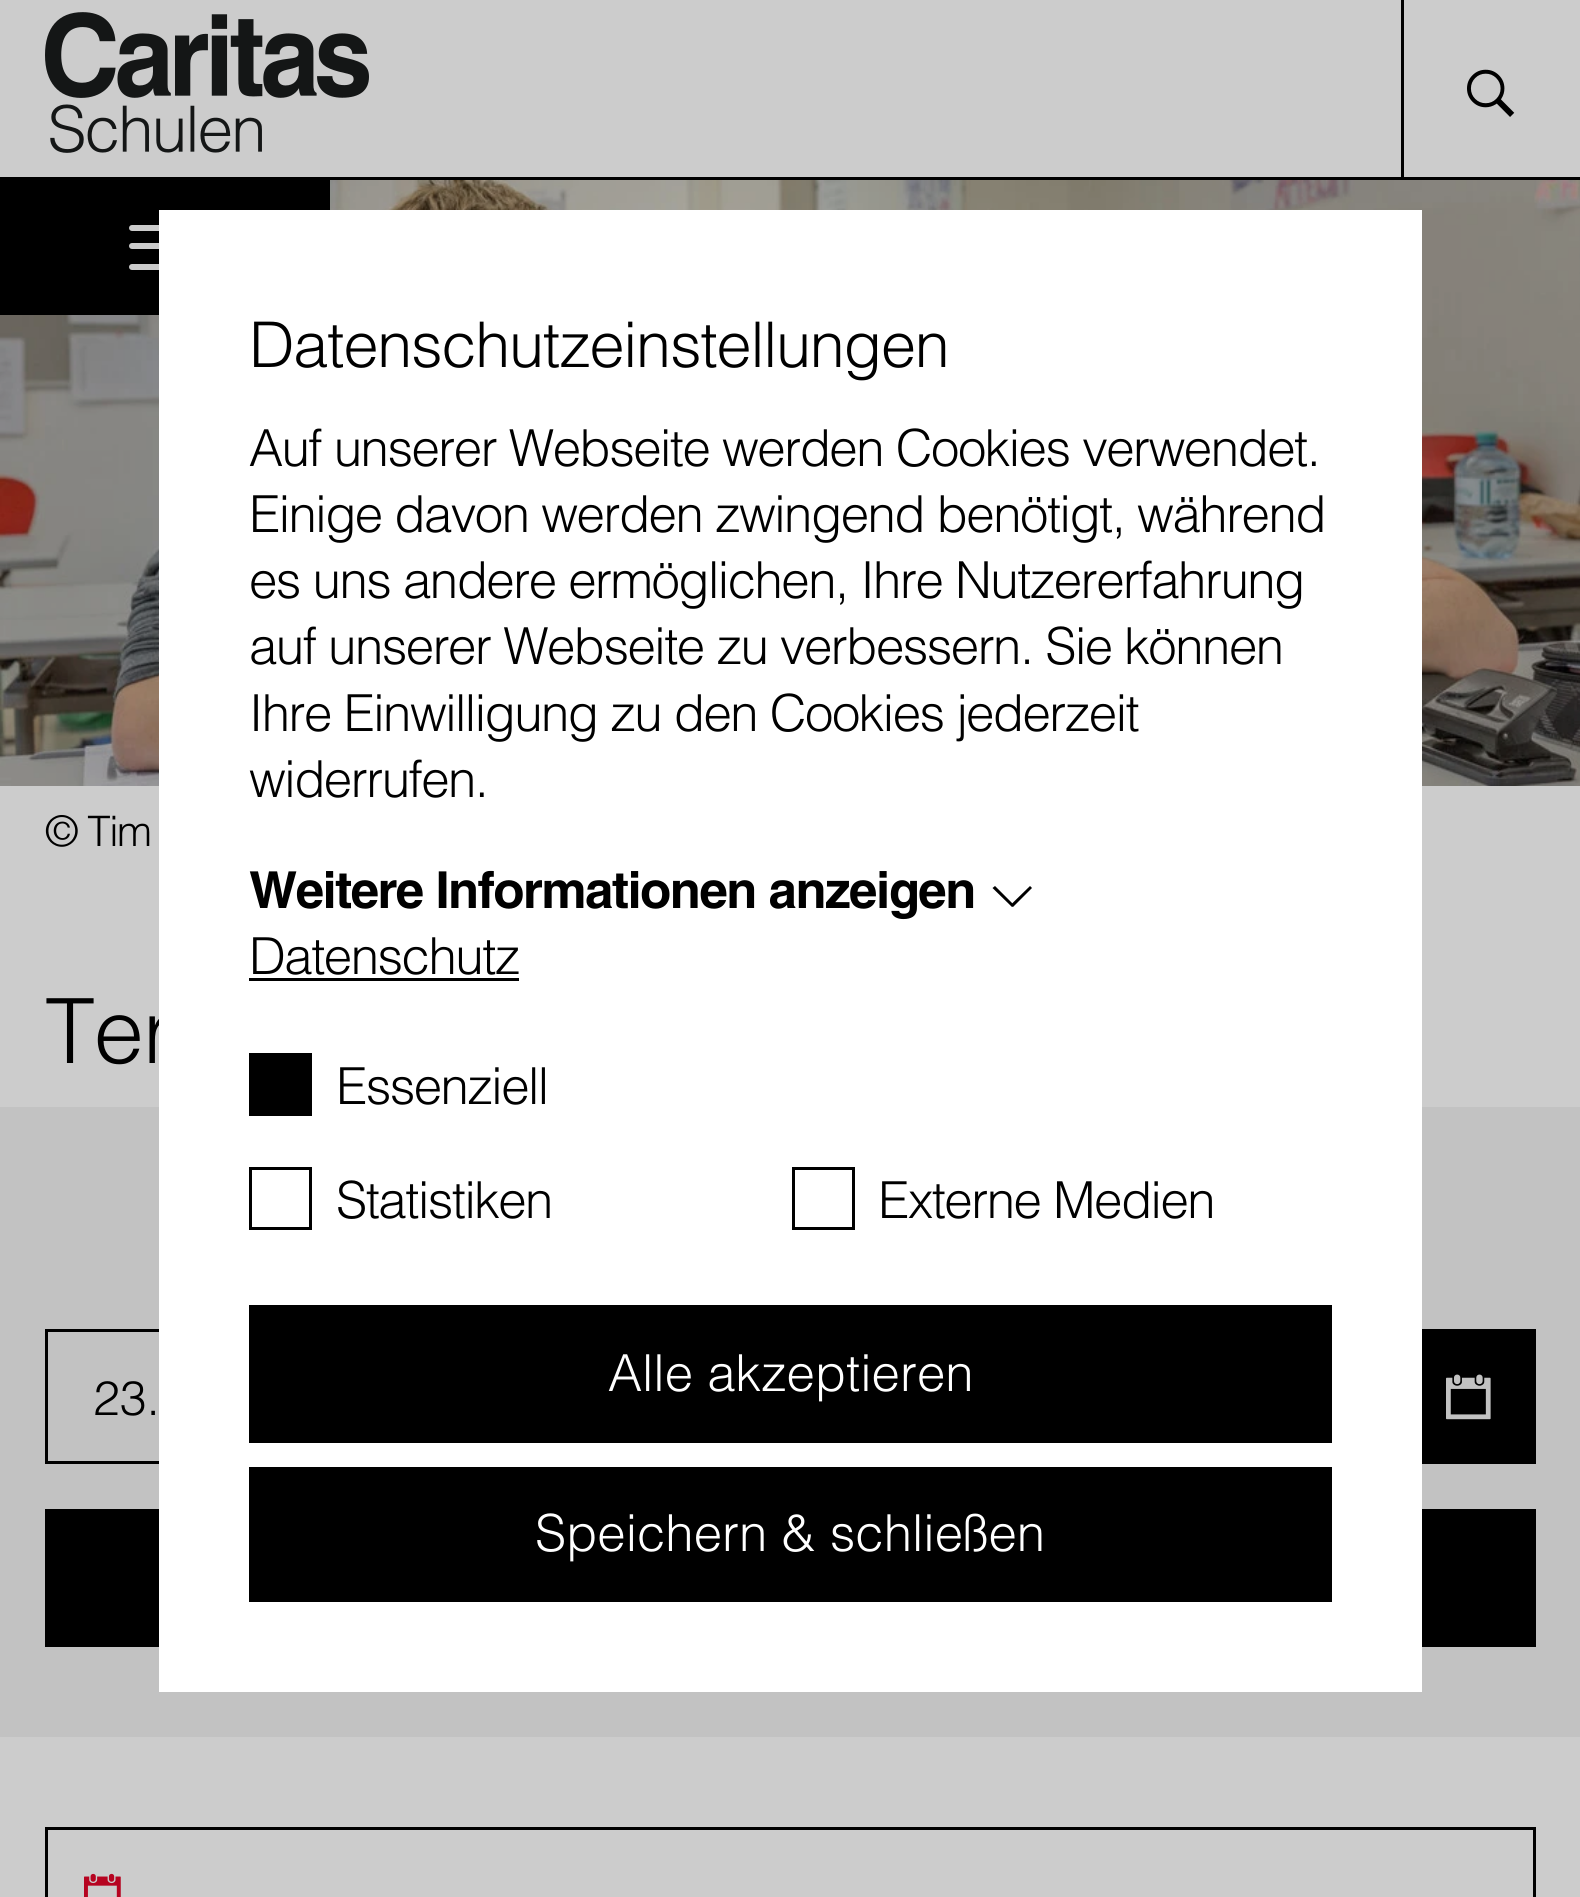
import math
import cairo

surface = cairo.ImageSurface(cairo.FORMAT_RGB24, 1580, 1897)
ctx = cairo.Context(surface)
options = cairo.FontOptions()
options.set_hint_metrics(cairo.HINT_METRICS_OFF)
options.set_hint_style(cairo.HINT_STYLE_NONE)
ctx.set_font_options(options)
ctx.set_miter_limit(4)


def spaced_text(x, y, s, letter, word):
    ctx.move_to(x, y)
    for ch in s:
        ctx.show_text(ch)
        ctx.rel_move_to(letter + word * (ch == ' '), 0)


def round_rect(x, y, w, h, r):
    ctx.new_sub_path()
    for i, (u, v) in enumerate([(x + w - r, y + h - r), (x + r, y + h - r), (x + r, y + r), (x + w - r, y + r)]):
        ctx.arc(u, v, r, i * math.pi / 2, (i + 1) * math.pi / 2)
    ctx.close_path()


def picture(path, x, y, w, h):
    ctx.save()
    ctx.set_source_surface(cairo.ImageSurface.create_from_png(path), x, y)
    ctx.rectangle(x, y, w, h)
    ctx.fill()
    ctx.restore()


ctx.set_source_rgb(0.8, 0.8, 0.8)
ctx.paint()
ctx.set_source_rgb(0, 0, 0)
ctx.rectangle(0, 177, 1580, 3)
ctx.fill()
picture("img1.png", 45, 12, 324, 141)
ctx.rectangle(1401, 0, 3, 177)
ctx.fill()
picture("img2.png", 1467, 69, 48, 48)
picture("img3.png", 0, 180, 1580, 606)
ctx.rectangle(0, 180, 330, 135)
ctx.fill()
ctx.set_source_rgb(0.8, 0.8, 0.8)
round_rect(129, 225, 72, 6, 3)
ctx.fill()
round_rect(129, 243, 72, 6, 3)
ctx.fill()
round_rect(129, 264, 72, 6, 3)
ctx.fill()
ctx.select_font_face("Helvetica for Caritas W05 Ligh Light")
ctx.set_font_size(42)
ctx.set_source_rgb(0, 0, 0)
spaced_text(45, 846, "© Tim", -1.5, 0)
ctx.set_font_size(90)
spaced_text(45, 1063, "Ter", -1.2, 0)
ctx.set_source_rgb(0.761, 0.761, 0.761)
ctx.rectangle(0, 1107, 1580, 630)
ctx.fill()
ctx.rectangle(46.5, 1330.5, 1488, 132)
ctx.set_source_rgb(0, 0, 0)
ctx.set_line_width(3)
ctx.stroke()
ctx.set_font_size(48)
ctx.move_to(93, 1415)
ctx.show_text("23.")
ctx.rectangle(1422, 1332, 111, 129)
ctx.fill()
picture("img4.png", 1446, 1374, 45, 46)
ctx.rectangle(45, 1509, 1491, 138)
ctx.fill()
ctx.rectangle(46.5, 1828.5, 1488, 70)
ctx.stroke()
picture("img5.png", 84, 1873, 37, 24)
ctx.set_source_rgb(1, 1, 1)
ctx.rectangle(159, 210, 1263, 1482)
ctx.fill()
ctx.set_font_size(63)
ctx.set_source_rgb(0, 0, 0)
spaced_text(249, 367, "Datenschutzeinstellungen", -1.2, 0)
ctx.set_font_size(51)
spaced_text(249, 466, "Auf unserer Webseite werden Cookies verwendet.", -1.5, 0)
spaced_text(249, 532, "Einige davon werden zwingend benötigt, während", -1.5, 0)
spaced_text(249, 598, "es uns andere ermöglichen, Ihre Nutzererfahrung", -1.5, 0)
spaced_text(249, 664, "auf unserer Webseite zu verbessern. Sie können", -1.5, 0)
spaced_text(249, 731, "Ihre Einwilligung zu den Cookies jederzeit", -1.5, 0)
spaced_text(249, 797, "widerrufen.", -1.5, 0)
ctx.select_font_face("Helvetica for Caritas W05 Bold", cairo.FONT_SLANT_NORMAL, cairo.FONT_WEIGHT_BOLD)
spaced_text(249, 908, "Weitere Informationen anzeigen", -1.5, 0)
ctx.new_path()
ctx.move_to(995, 886)
ctx.line_to(1014, 905)
ctx.line_to(1012, 907)
ctx.line_to(992.5, 888)
ctx.close_path()
ctx.fill()
ctx.new_path()
ctx.move_to(1010.5, 905)
ctx.line_to(1030, 886)
ctx.line_to(1032, 888)
ctx.line_to(1013, 907)
ctx.close_path()
ctx.fill()
ctx.select_font_face("Helvetica for Caritas W05 Ligh Light")
spaced_text(249, 974, "Datenschutz", -1.5, 0)
ctx.rectangle(249, 978, 270, 3)
ctx.fill()
ctx.rectangle(249, 1053, 63, 63)
ctx.fill()
spaced_text(336, 1104, "Essenziell", -1.5, 0)
ctx.rectangle(250.5, 1168.5, 60, 60)
ctx.stroke()
spaced_text(336, 1218, "Statistiken", -1.5, 0)
ctx.rectangle(793.5, 1168.5, 60, 60)
ctx.stroke()
spaced_text(878, 1218, "Externe Medien", -1.5, 0)
ctx.rectangle(249, 1305, 1083, 138)
ctx.fill()
ctx.set_source_rgb(1, 1, 1)
ctx.move_to(608, 1391)
ctx.show_text("Alle akzeptieren")
ctx.set_source_rgb(0, 0, 0)
ctx.rectangle(249, 1467, 1083, 135)
ctx.fill()
ctx.set_source_rgb(1, 1, 1)
ctx.move_to(535, 1551)
ctx.show_text("Speichern & schließen")
surface.write_to_png("page.png")
